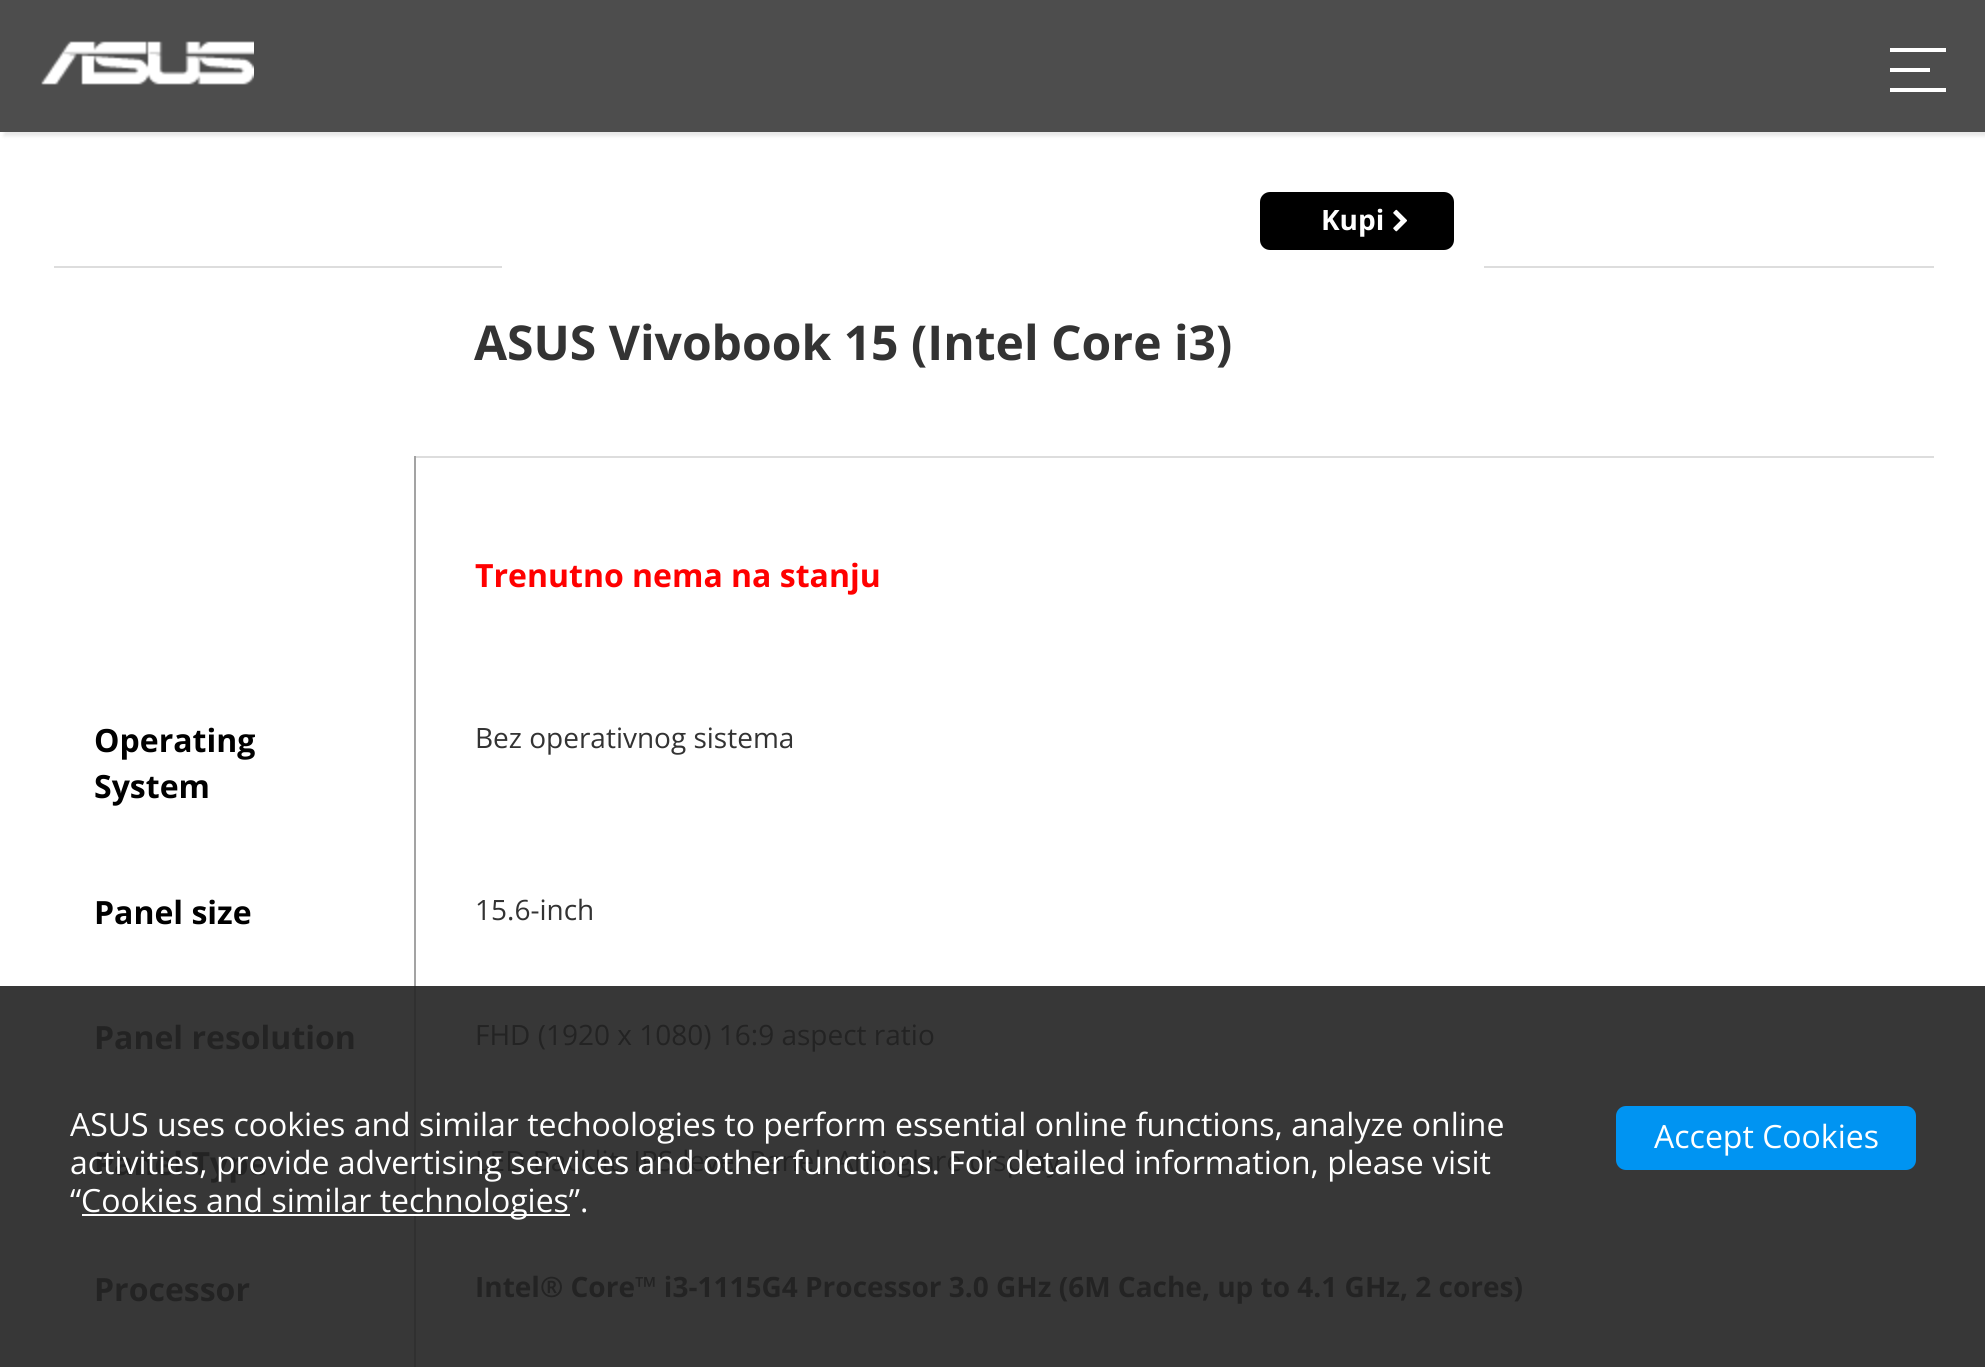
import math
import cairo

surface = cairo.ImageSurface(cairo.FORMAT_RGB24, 1985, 1367)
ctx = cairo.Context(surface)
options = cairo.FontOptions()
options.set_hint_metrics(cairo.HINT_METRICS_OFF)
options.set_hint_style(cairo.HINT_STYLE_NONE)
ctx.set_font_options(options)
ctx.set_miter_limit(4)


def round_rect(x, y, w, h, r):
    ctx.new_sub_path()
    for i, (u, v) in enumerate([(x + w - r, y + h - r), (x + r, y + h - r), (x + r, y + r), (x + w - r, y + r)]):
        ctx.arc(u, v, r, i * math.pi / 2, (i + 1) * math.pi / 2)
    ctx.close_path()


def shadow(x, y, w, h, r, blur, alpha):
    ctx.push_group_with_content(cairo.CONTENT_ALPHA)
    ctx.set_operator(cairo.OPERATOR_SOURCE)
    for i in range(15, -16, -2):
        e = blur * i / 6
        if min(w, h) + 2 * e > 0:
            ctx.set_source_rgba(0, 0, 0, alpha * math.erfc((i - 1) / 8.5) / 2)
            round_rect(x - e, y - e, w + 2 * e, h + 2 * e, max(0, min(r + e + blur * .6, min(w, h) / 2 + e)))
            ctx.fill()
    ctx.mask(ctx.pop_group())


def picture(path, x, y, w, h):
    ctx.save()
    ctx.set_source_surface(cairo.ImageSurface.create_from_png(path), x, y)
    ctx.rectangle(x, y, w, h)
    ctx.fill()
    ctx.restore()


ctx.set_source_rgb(1, 1, 1)
ctx.paint()
ctx.set_source_rgb(0.216, 0.216, 0.216)
ctx.rectangle(0, 986, 1985, 381)
ctx.fill()
ctx.set_source_rgb(0, 0, 0)
shadow(4, 4, 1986, 132, 0, 2, 0.1)
ctx.set_source_rgb(0.302, 0.302, 0.302)
ctx.rectangle(0, 0, 1985, 132)
ctx.fill()
picture("img1.png", 41, 41, 213, 44)
ctx.set_source_rgb(1, 1, 1)
ctx.rectangle(1890, 48, 56, 4)
ctx.fill()
ctx.rectangle(1890, 68, 40, 4)
ctx.fill()
ctx.rectangle(1890, 88, 56, 4)
ctx.fill()
ctx.set_source_rgb(0.867, 0.867, 0.867)
ctx.rectangle(54, 266, 1880, 2)
ctx.fill()
ctx.set_source_rgb(1, 1, 1)
ctx.rectangle(502, 266, 982, 2)
ctx.fill()
ctx.set_source_rgb(0, 0, 0)
round_rect(1260, 192, 194, 58, 10)
ctx.fill()
ctx.select_font_face("Open Sans", cairo.FONT_SLANT_NORMAL, cairo.FONT_WEIGHT_BOLD)
ctx.set_font_size(28)
ctx.set_source_rgb(1, 1, 1)
ctx.move_to(1321, 230)
ctx.show_text("Kupi")
picture("img2.png", 1393, 209, 14, 23)
ctx.set_font_size(48)
ctx.set_source_rgb(0.2, 0.2, 0.2)
ctx.move_to(474, 360)
ctx.show_text("ASUS Vivobook 15 (Intel Core i3)")
ctx.set_source_rgb(0.867, 0.867, 0.867)
ctx.rectangle(414, 456, 1520, 2)
ctx.fill()
ctx.set_source_rgb(0.639, 0.639, 0.639)
ctx.rectangle(414, 678, 2, 308)
ctx.fill()
ctx.rectangle(414, 456, 2, 224)
ctx.fill()
ctx.set_font_size(32)
ctx.set_source_rgb(1, 0, 0)
ctx.move_to(475, 587)
ctx.show_text("Trenutno nema na stanju")
ctx.set_source_rgb(0, 0, 0)
ctx.move_to(94, 752)
ctx.show_text("Operating")
ctx.move_to(94, 798)
ctx.show_text("System")
ctx.select_font_face("Open Sans")
ctx.set_font_size(28)
ctx.set_source_rgb(0.2, 0.2, 0.2)
ctx.move_to(475, 748)
ctx.show_text("Bez operativnog sistema")
ctx.select_font_face("Open Sans", cairo.FONT_SLANT_NORMAL, cairo.FONT_WEIGHT_BOLD)
ctx.set_font_size(32)
ctx.set_source_rgb(0, 0, 0)
ctx.move_to(94, 924)
ctx.show_text("Panel size")
ctx.select_font_face("Open Sans")
ctx.set_font_size(28)
ctx.set_source_rgb(0.2, 0.2, 0.2)
ctx.move_to(475, 920)
ctx.show_text("15.6-inch")
ctx.set_source_rgb(0.188, 0.188, 0.188)
ctx.rectangle(414, 986, 2, 381)
ctx.fill()
ctx.select_font_face("Open Sans", cairo.FONT_SLANT_NORMAL, cairo.FONT_WEIGHT_BOLD)
ctx.set_font_size(32)
ctx.set_source_rgb(0.137, 0.137, 0.137)
ctx.move_to(94, 1049)
ctx.show_text("Panel resolution")
ctx.select_font_face("Open Sans")
ctx.set_font_size(28)
ctx.move_to(475, 1045)
ctx.show_text("FHD (1920 x 1080) 16:9 aspect ratio")
ctx.select_font_face("Open Sans", cairo.FONT_SLANT_NORMAL, cairo.FONT_WEIGHT_BOLD)
ctx.set_font_size(32)
ctx.move_to(94, 1175)
ctx.show_text("Panel Type")
ctx.select_font_face("Open Sans")
ctx.set_font_size(28)
ctx.move_to(475, 1171)
ctx.show_text("LED Backlit, IPS-level Panel, Anti-glare display")
ctx.select_font_face("Open Sans", cairo.FONT_SLANT_NORMAL, cairo.FONT_WEIGHT_BOLD)
ctx.set_font_size(32)
ctx.move_to(94, 1301)
ctx.show_text("Processor")
ctx.set_font_size(28)
ctx.move_to(475, 1297)
ctx.show_text("Intel® Core™ i3-1115G4 Processor 3.0 GHz (6M Cache, up to 4.1 GHz, 2 cores)")
ctx.select_font_face("Open Sans")
ctx.set_font_size(32)
ctx.set_source_rgb(1, 1, 1)
ctx.move_to(70, 1136)
ctx.show_text("ASUS uses cookies and similar techoologies to perform essential online functions, analyze online")
ctx.move_to(70, 1174)
ctx.show_text("activities, provide advertising services and other functions. For detailed information, please visit")
ctx.move_to(70, 1212)
ctx.show_text("“")
ctx.rectangle(82, 1214, 488, 2)
ctx.fill()
ctx.move_to(81, 1212)
ctx.show_text("Cookies and similar technologies”.")
ctx.set_source_rgb(0, 0.58, 0.949)
round_rect(1616, 1106, 300, 64, 10)
ctx.fill()
ctx.set_source_rgb(1, 1, 1)
ctx.move_to(1654, 1148)
ctx.show_text("Accept Cookies")
surface.write_to_png("page.png")
